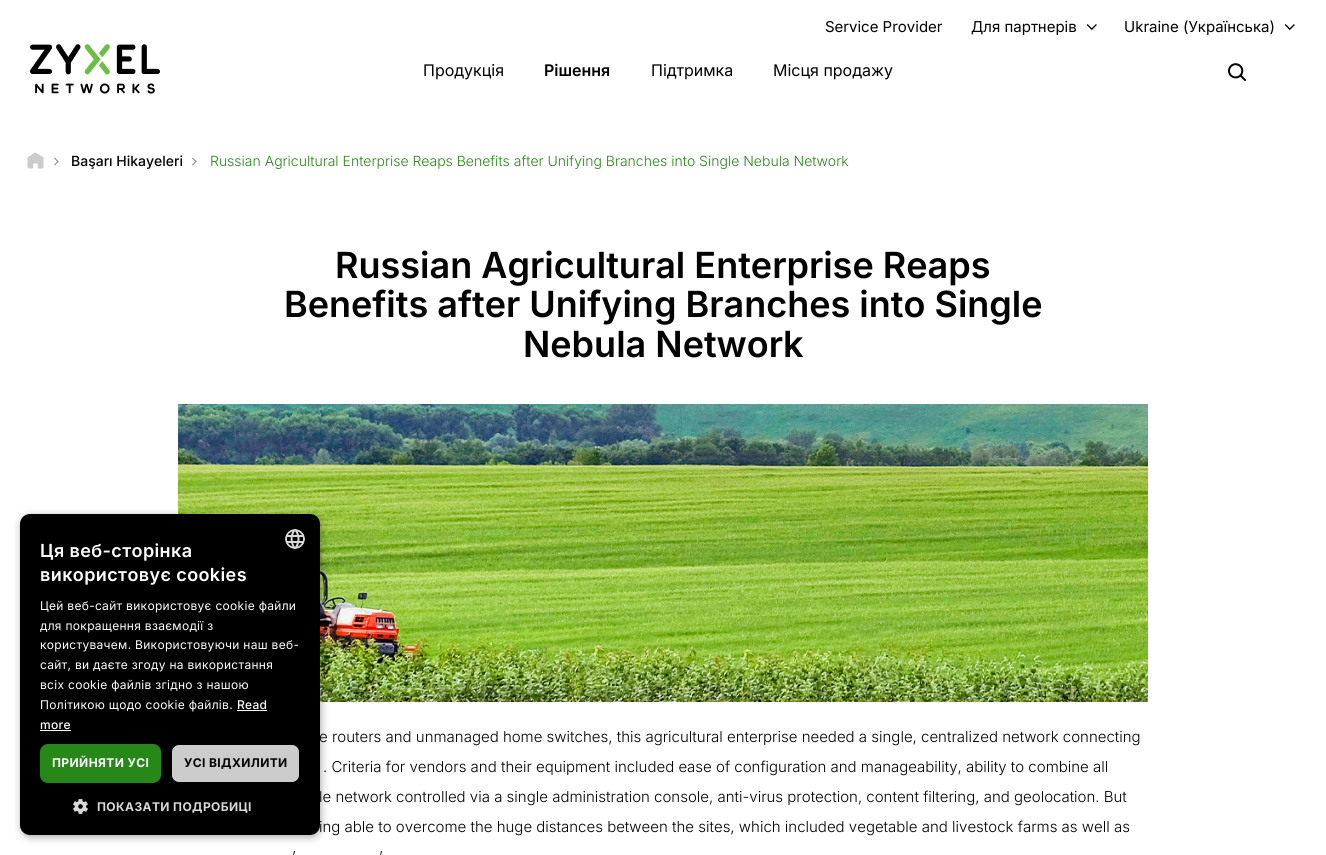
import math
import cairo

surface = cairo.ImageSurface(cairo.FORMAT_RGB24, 1326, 855)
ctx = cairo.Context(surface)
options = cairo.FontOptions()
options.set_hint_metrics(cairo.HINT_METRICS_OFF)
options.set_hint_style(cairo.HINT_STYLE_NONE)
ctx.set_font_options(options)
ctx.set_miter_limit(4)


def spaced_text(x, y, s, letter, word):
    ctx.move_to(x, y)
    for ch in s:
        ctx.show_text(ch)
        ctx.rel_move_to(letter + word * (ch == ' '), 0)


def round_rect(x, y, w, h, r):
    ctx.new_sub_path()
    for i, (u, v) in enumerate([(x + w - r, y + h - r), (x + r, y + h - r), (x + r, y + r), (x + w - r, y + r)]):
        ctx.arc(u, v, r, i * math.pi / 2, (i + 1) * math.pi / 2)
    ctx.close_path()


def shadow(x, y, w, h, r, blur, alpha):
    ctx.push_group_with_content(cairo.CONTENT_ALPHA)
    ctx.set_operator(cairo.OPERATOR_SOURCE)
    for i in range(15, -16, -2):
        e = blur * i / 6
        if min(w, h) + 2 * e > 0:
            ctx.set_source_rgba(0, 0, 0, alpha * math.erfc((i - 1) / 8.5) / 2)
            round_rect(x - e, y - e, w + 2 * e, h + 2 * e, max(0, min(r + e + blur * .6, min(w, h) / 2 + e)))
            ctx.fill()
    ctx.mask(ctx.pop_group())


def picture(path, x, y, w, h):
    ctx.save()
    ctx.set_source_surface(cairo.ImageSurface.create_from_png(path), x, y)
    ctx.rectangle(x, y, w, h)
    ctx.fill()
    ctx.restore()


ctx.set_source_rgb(1, 1, 1)
ctx.paint()
ctx.select_font_face("Inter")
ctx.set_font_size(15)
ctx.set_source_rgb(0.004, 0.004, 0.004)
ctx.move_to(825, 32)
ctx.show_text("Service Provider")
ctx.move_to(971, 32)
ctx.show_text("Для партнерів")
picture("img1.png", 1086, 24, 11, 6)
ctx.move_to(1124, 32)
ctx.show_text("Ukraine (Українська)")
picture("img1.png", 1284, 24, 11, 6)
picture("img2.png", 30, 44, 130, 50)
ctx.set_font_size(16)
ctx.move_to(423, 76)
ctx.show_text("Продукція")
ctx.select_font_face("Inter SemiBold")
ctx.move_to(544, 76)
ctx.show_text("Рішення")
ctx.select_font_face("Inter")
ctx.move_to(651, 76)
ctx.show_text("Підтримка")
ctx.move_to(773, 76)
ctx.show_text("Місця продажу")
picture("img3.png", 1228, 63, 18, 18)
picture("img4.png", 27, 152, 17, 17)
picture("img5.png", 54, 157, 5, 9)
ctx.select_font_face("Inter Medium")
ctx.set_font_size(14)
ctx.move_to(71, 166)
ctx.show_text("Başarı Hikayeleri")
picture("img5.png", 192, 157, 5, 9)
ctx.select_font_face("Inter Light")
ctx.set_source_rgb(0.157, 0.529, 0.098)
ctx.move_to(210, 166)
ctx.show_text("Russian Agricultural Enterprise Reaps Benefits after Unifying Branches into Single Nebula Network")
ctx.select_font_face("Inter SemiBold")
ctx.set_font_size(36)
ctx.set_source_rgb(0.004, 0.004, 0.004)
ctx.move_to(335, 278)
ctx.show_text("Russian Agricultural Enterprise Reaps")
ctx.move_to(284, 317)
ctx.show_text("Benefits after Unifying Branches into Single")
ctx.move_to(523, 357)
ctx.show_text("Nebula Network")
picture("img6.png", 178, 404, 970, 298)
ctx.select_font_face("Inter Light")
ctx.set_font_size(15)
ctx.move_to(319, 742)
ctx.show_text("e routers and unmanaged home switches, this agricultural enterprise needed a single, centralized network connecting")
ctx.move_to(323, 772)
ctx.show_text(". Criteria for vendors and their equipment included ease of configuration and manageability, ability to combine all")
ctx.move_to(319, 802)
ctx.show_text("le network controlled via a single administration console, anti-virus protection, content filtering, and geolocation. But")
ctx.move_to(319, 832)
ctx.show_text("ing able to overcome the huge distances between the sites, which included vegetable and livestock farms as well as")
ctx.move_to(292, 862)
ctx.show_text("’")
ctx.move_to(379, 862)
ctx.show_text("’")
ctx.set_source_rgb(0, 0, 0)
shadow(21, 516, 300, 321, 10, 4, 0.35)
ctx.set_source_rgb(0, 0, 0)
round_rect(20, 514, 300, 321, 10)
ctx.fill()
picture("img7.png", 285, 529, 20, 20)
ctx.select_font_face("Inter SemiBold")
ctx.set_font_size(18)
ctx.set_source_rgb(1, 1, 1)
spaced_text(40, 557, "Ця веб-сторінка", 0.4, 0)
spaced_text(40, 581, "використовує cookies", 0.4, 0)
ctx.select_font_face("Inter")
ctx.set_font_size(12)
spaced_text(40, 610, "Цей веб-сайт використовує cookie файли", 0.3, 0)
spaced_text(40, 630, "для покращення взаємодії з", 0.3, 0)
spaced_text(40, 649, "користувачем. Використовуючи наш веб-", 0.3, 0)
spaced_text(40, 669, "сайт, ви даєте згоду на використання", 0.3, 0)
spaced_text(40, 689, "всіх cookie файлів згідно з нашою", 0.3, 0)
spaced_text(40, 709, "Політикою щодо cookie файлів.", 0.3, 0)
ctx.select_font_face("Inter Medium")
spaced_text(237, 709, "Read", 0.3, 0)
ctx.rectangle(237, 710, 30, 1)
ctx.fill()
spaced_text(40, 729, "more", 0.3, 0)
ctx.rectangle(40, 730, 31, 1)
ctx.fill()
ctx.set_source_rgb(0.157, 0.529, 0.098)
round_rect(40, 744, 121, 39, 8)
ctx.fill()
ctx.select_font_face("Inter", cairo.FONT_SLANT_NORMAL, cairo.FONT_WEIGHT_BOLD)
ctx.set_source_rgb(1, 1, 1)
spaced_text(52, 767, "ПРИЙНЯТИ УСІ", 0.4, 0)
ctx.set_source_rgb(0.8, 0.8, 0.8)
round_rect(171.5, 744.5, 128, 38, 7.5)
ctx.fill_preserve()
ctx.set_source_rgb(0, 0, 0)
ctx.set_line_width(1)
ctx.stroke()
ctx.set_source_rgb(0.004, 0.004, 0.004)
spaced_text(184, 767, "УСІ ВІДХИЛИТИ", 0.4, 0)
picture("img8.png", 73, 799, 15, 15)
ctx.set_source_rgb(0.851, 0.851, 0.851)
spaced_text(97, 811, "ПОКАЗАТИ ПОДРОБИЦІ", 0.4, 0)
surface.write_to_png("page.png")
